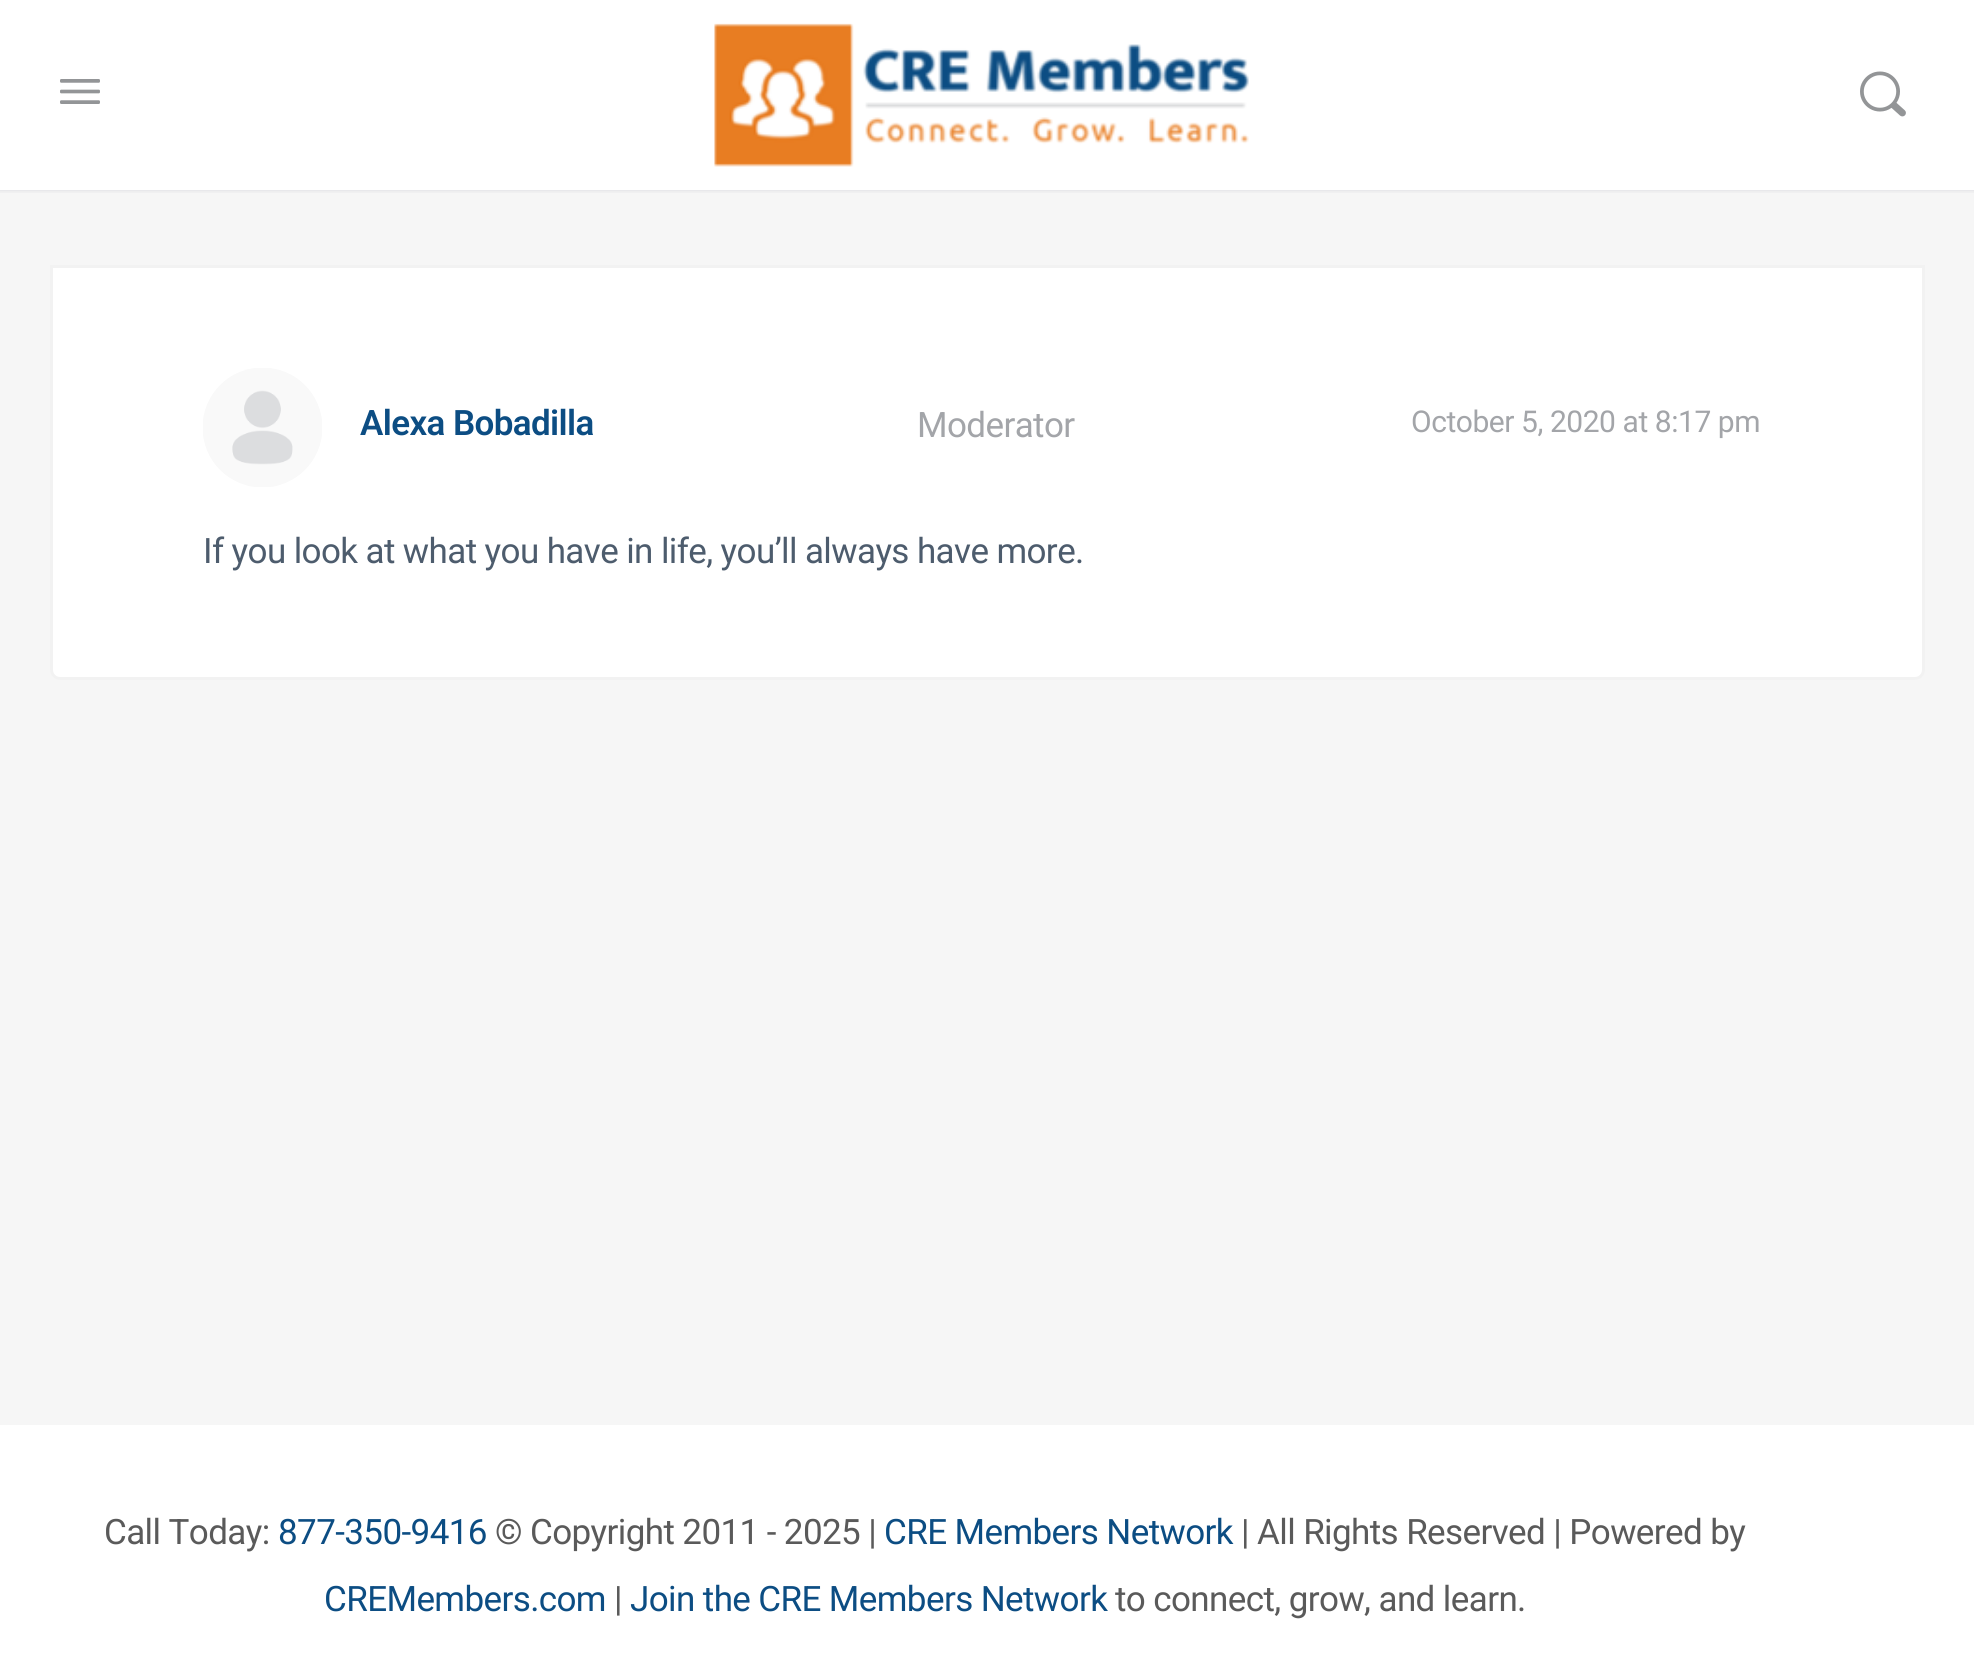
import math
import cairo

surface = cairo.ImageSurface(cairo.FORMAT_RGB24, 1974, 1673)
ctx = cairo.Context(surface)
options = cairo.FontOptions()
options.set_hint_metrics(cairo.HINT_METRICS_OFF)
options.set_hint_style(cairo.HINT_STYLE_NONE)
ctx.set_font_options(options)
ctx.set_miter_limit(4)


def spaced_text(x, y, s, letter, word):
    ctx.move_to(x, y)
    for ch in s:
        ctx.show_text(ch)
        ctx.rel_move_to(letter + word * (ch == ' '), 0)


def round_rect(x, y, w, h, r):
    ctx.new_sub_path()
    for i, (u, v) in enumerate([(x + w - r, y + h - r), (x + r, y + h - r), (x + r, y + r), (x + w - r, y + r)]):
        ctx.arc(u, v, r, i * math.pi / 2, (i + 1) * math.pi / 2)
    ctx.close_path()


def shadow(x, y, w, h, r, blur, alpha):
    ctx.push_group_with_content(cairo.CONTENT_ALPHA)
    ctx.set_operator(cairo.OPERATOR_SOURCE)
    for i in range(15, -16, -2):
        e = blur * i / 6
        if min(w, h) + 2 * e > 0:
            ctx.set_source_rgba(0, 0, 0, alpha * math.erfc((i - 1) / 8.5) / 2)
            round_rect(x - e, y - e, w + 2 * e, h + 2 * e, max(0, min(r + e + blur * .6, min(w, h) / 2 + e)))
            ctx.fill()
    ctx.mask(ctx.pop_group())


def picture(path, x, y, w, h):
    ctx.save()
    ctx.set_source_surface(cairo.ImageSurface.create_from_png(path), x, y)
    ctx.rectangle(x, y, w, h)
    ctx.fill()
    ctx.restore()


ctx.set_source_rgb(0.961, 0.961, 0.961)
ctx.paint()
ctx.set_source_rgb(0.941, 0.941, 0.945)
ctx.rectangle(0, 190, 1974, 3)
ctx.fill()
ctx.set_source_rgb(0.271, 0.294, 0.431)
shadow(0, 0, 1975, 190, 0, 1, 0.15)
ctx.set_source_rgb(1, 1, 1)
ctx.rectangle(0, 0, 1974, 190)
ctx.fill()
picture("img1.png", 60, 79, 40, 25)
picture("img2.png", 714, 23, 535, 144)
picture("img3.png", 1860, 71, 46, 46)
ctx.new_path()
ctx.move_to(51.5, 266.5)
ctx.line_to(1923.5, 266.5)
ctx.line_to(1923.5, 670)
ctx.curve_to(1923.5, 674.5, 1919.5, 678.5, 1915, 678.5)
ctx.line_to(60, 678.5)
ctx.curve_to(55.5, 678.5, 51.5, 674.5, 51.5, 670)
ctx.close_path()
ctx.fill_preserve()
ctx.set_source_rgb(0.949, 0.949, 0.949)
ctx.set_line_width(3)
ctx.stroke()
picture("img4.png", 203, 368, 119, 119)
ctx.select_font_face("Roboto SemiBold")
ctx.set_font_size(35)
ctx.set_source_rgb(0.047, 0.302, 0.514)
spaced_text(360, 435, "Alexa Bobadilla", -0.6, 0)
ctx.select_font_face("Roboto")
ctx.set_source_rgb(0.639, 0.647, 0.663)
spaced_text(917, 437, "Moderator", -0.6, 0)
ctx.set_font_size(30)
spaced_text(1411, 432, "October 5, 2020 at 8:17 pm", -0.45, 0)
ctx.set_font_size(35)
ctx.set_source_rgb(0.302, 0.361, 0.427)
spaced_text(203, 563, "If you look at what you have in life, you’ll always have more.", -0.6, 0)
ctx.set_source_rgb(1, 1, 1)
ctx.rectangle(0, 1425, 1974, 248)
ctx.fill()
ctx.set_source_rgb(0.353, 0.353, 0.353)
spaced_text(104, 1544, "Call Today:", -0.6, 0)
ctx.set_source_rgb(0.047, 0.302, 0.514)
spaced_text(278, 1544, "877-350-9416", -0.6, 0)
ctx.set_source_rgb(0.353, 0.353, 0.353)
spaced_text(495, 1544, "© Copyright 2011 - 2025 |", -0.6, 0)
ctx.set_source_rgb(0.047, 0.302, 0.514)
spaced_text(884, 1544, "CRE Members Network", -0.6, 0)
ctx.set_source_rgb(0.353, 0.353, 0.353)
spaced_text(1241, 1544, "| All Rights Reserved | Powered by", -0.6, 0)
ctx.set_source_rgb(0.047, 0.302, 0.514)
spaced_text(324, 1611, "CREMembers.com", -0.6, 0)
ctx.set_source_rgb(0.353, 0.353, 0.353)
spaced_text(614, 1611, "|", -0.6, 0)
ctx.set_source_rgb(0.047, 0.302, 0.514)
spaced_text(630, 1611, "Join the CRE Members Network", -0.6, 0)
ctx.set_source_rgb(0.353, 0.353, 0.353)
spaced_text(1115, 1611, "to connect, grow, and learn.", -0.6, 0)
surface.write_to_png("page.png")
